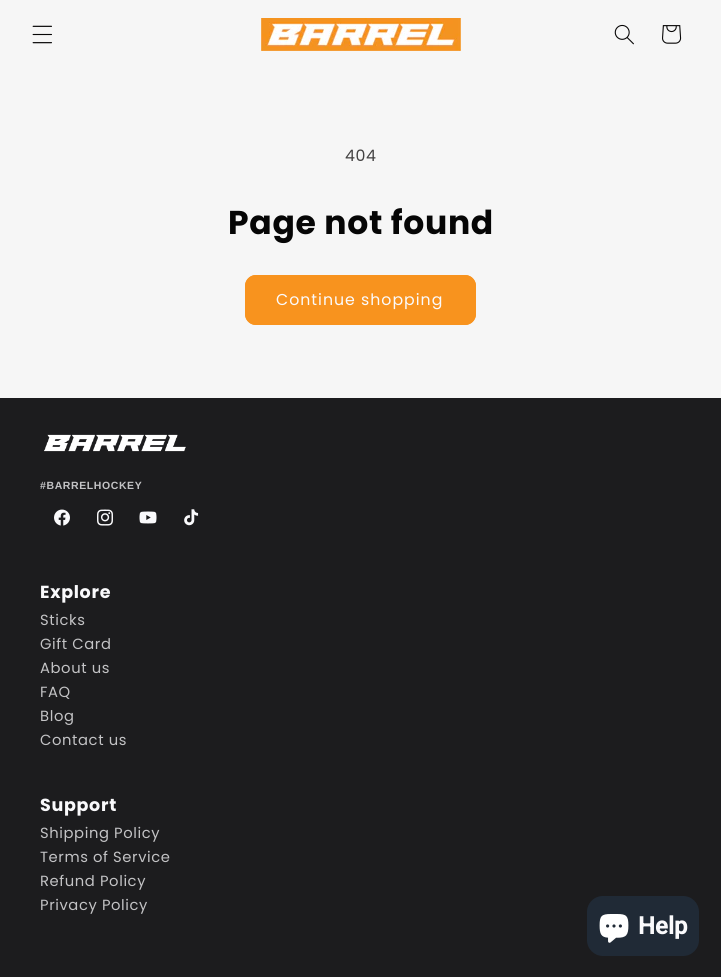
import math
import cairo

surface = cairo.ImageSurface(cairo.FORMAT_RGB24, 721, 977)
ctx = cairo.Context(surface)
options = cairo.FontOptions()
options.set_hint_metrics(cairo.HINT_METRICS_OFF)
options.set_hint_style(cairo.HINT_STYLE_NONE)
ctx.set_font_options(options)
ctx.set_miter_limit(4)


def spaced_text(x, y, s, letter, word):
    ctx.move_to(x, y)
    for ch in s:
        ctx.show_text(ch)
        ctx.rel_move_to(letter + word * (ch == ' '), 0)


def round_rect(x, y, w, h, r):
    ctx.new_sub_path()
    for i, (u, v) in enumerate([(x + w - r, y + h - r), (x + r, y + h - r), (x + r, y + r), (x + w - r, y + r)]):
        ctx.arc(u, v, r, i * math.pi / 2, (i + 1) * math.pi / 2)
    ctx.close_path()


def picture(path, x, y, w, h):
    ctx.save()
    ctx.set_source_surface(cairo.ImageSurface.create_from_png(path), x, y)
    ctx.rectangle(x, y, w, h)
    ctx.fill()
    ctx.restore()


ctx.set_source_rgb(0.961, 0.961, 0.961)
ctx.paint()
picture("img1.png", 32, 25, 20, 19)
picture("img2.png", 261, 18, 200, 33)
picture("img3.png", 614, 24, 20, 21)
picture("img4.png", 662, 25, 20, 19)
ctx.select_font_face("Poppins")
ctx.set_font_size(15.75)
ctx.set_source_rgb(0.263, 0.259, 0.259)
spaced_text(345, 161, "404", 0.6, 0)
ctx.select_font_face("Poppins", cairo.FONT_SLANT_NORMAL, cairo.FONT_WEIGHT_BOLD)
ctx.set_font_size(33)
ctx.set_source_rgb(0.027, 0.024, 0.024)
spaced_text(228, 234, "Page not found", 0.7, 0)
ctx.set_source_rgb(0.969, 0.576, 0.118)
round_rect(245, 275, 231, 50, 11)
ctx.fill()
round_rect(245.5, 275.5, 230, 49, 10.5)
ctx.set_line_width(1)
ctx.stroke()
ctx.select_font_face("Poppins")
ctx.set_font_size(15.75)
ctx.set_source_rgb(0.98, 0.98, 0.988)
spaced_text(276, 305, "Continue shopping", 1, 0)
ctx.set_source_rgb(0.11, 0.11, 0.118)
ctx.rectangle(0, 398, 721, 579)
ctx.fill()
picture("img5.png", 44, 434, 142, 18)
ctx.select_font_face("Liberation Sans", cairo.FONT_SLANT_NORMAL, cairo.FONT_WEIGHT_BOLD)
ctx.set_font_size(10.5)
ctx.set_source_rgb(0.765, 0.765, 0.773)
spaced_text(40, 489, "#BARRELHOCKEY", 0.6, 0)
picture("img6.png", 54, 509, 16, 17)
picture("img7.png", 97, 509, 16, 17)
picture("img8.png", 139, 511, 18, 13)
picture("img9.png", 184, 509, 15, 17)
ctx.select_font_face("Poppins", cairo.FONT_SLANT_NORMAL, cairo.FONT_WEIGHT_BOLD)
ctx.set_font_size(17.5)
ctx.set_source_rgb(0.98, 0.98, 0.988)
spaced_text(40, 598, "Explore", 0.7, 0)
ctx.select_font_face("Poppins")
ctx.set_font_size(14.75)
ctx.set_source_rgb(0.765, 0.765, 0.773)
spaced_text(40, 625, "Sticks", 0.6, 0)
spaced_text(40, 649, "Gift Card", 0.6, 0)
spaced_text(40, 673, "About us", 0.6, 0)
spaced_text(40, 697, "FAQ", 0.6, 0)
spaced_text(40, 721, "Blog", 0.6, 0)
spaced_text(40, 745, "Contact us", 0.6, 0)
ctx.select_font_face("Poppins", cairo.FONT_SLANT_NORMAL, cairo.FONT_WEIGHT_BOLD)
ctx.set_font_size(17.5)
ctx.set_source_rgb(0.98, 0.98, 0.988)
spaced_text(40, 811, "Support", 0.7, 0)
ctx.select_font_face("Poppins")
ctx.set_font_size(14.75)
ctx.set_source_rgb(0.765, 0.765, 0.773)
spaced_text(40, 838, "Shipping Policy", 0.6, 0)
spaced_text(40, 862, "Terms of Service", 0.6, 0)
spaced_text(40, 886, "Refund Policy", 0.6, 0)
spaced_text(40, 910, "Privacy Policy", 0.6, 0)
ctx.set_source_rgb(0.125, 0.165, 0.212)
round_rect(587, 896, 112, 60, 16)
ctx.fill()
picture("img10.png", 599, 914, 30, 29)
ctx.select_font_face("Roboto", cairo.FONT_SLANT_NORMAL, cairo.FONT_WEIGHT_BOLD)
ctx.set_font_size(24)
ctx.set_source_rgb(0.98, 0.98, 0.988)
ctx.move_to(638, 934)
ctx.show_text("Help")
surface.write_to_png("page.png")
